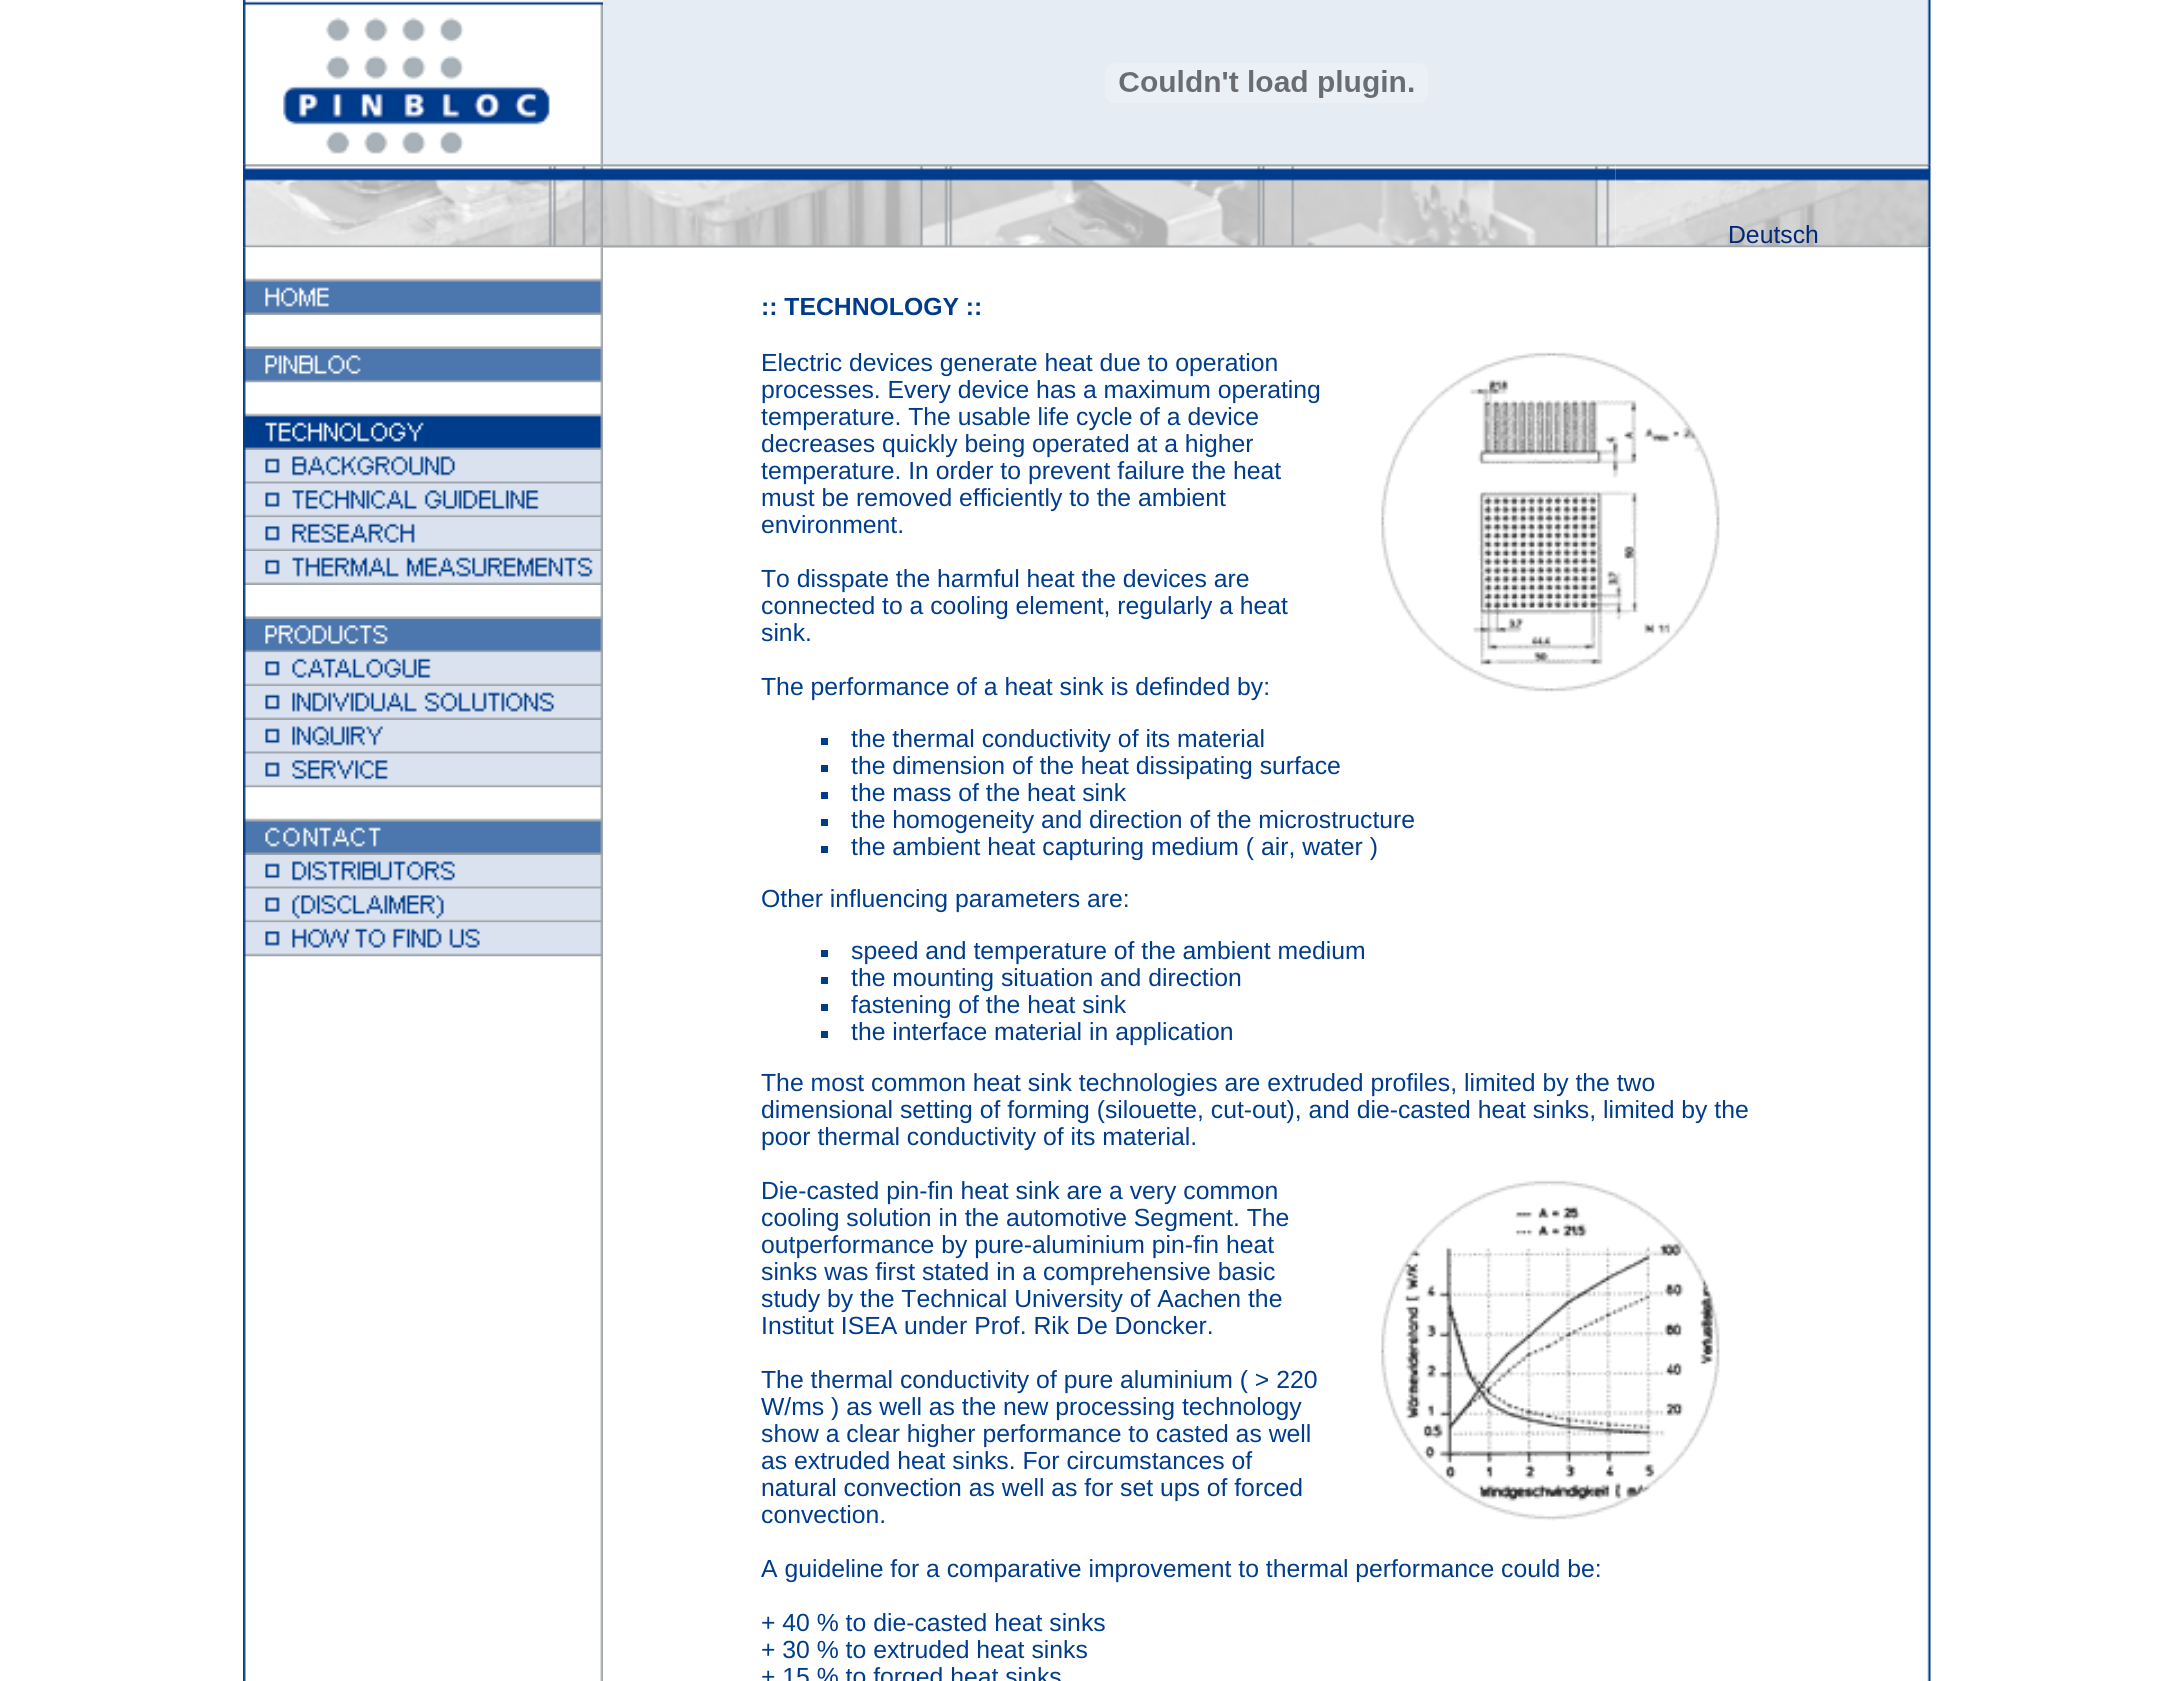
import math
import cairo

surface = cairo.ImageSurface(cairo.FORMAT_RGB24, 2172, 1681)
ctx = cairo.Context(surface)
options = cairo.FontOptions()
options.set_hint_metrics(cairo.HINT_METRICS_OFF)
options.set_hint_style(cairo.HINT_STYLE_NONE)
ctx.set_font_options(options)
ctx.set_miter_limit(4)


def picture(path, x, y, w, h):
    ctx.save()
    ctx.set_source_surface(cairo.ImageSurface.create_from_png(path), x, y)
    ctx.rectangle(x, y, w, h)
    ctx.fill()
    ctx.restore()


ctx.set_source_rgb(1, 1, 1)
ctx.paint()
picture("img1.png", 243, 164, 360, 1)
picture("img2.png", 243, 0, 360, 165)
picture("img3.png", 603, 0, 1328, 165)
picture("img4.png", 1105, 63, 323, 40)
picture("img8.png", 243, 247, 360, 1434)
picture("img5.png", 243, 164, 360, 84)
picture("img7.png", 1615, 164, 316, 84)
picture("img28.png", 1615, 247, 316, 1434)
picture("img6.png", 603, 164, 1013, 84)
ctx.select_font_face("Liberation Sans")
ctx.set_font_size(24.75)
ctx.set_source_rgb(0, 0.157, 0.471)
ctx.move_to(1728, 243)
ctx.show_text("Deutsch")
picture("img9.png", 243, 247, 360, 35)
picture("img10.png", 244, 281, 358, 34)
picture("img11.png", 244, 346, 358, 3)
picture("img12.png", 244, 348, 358, 35)
picture("img13.png", 244, 382, 358, 35)
picture("img14.png", 244, 416, 358, 34)
picture("img15.png", 244, 450, 358, 34)
picture("img16.png", 244, 483, 358, 35)
picture("img17.png", 244, 517, 358, 35)
picture("img18.png", 244, 551, 358, 34)
picture("img11.png", 244, 616, 358, 3)
picture("img19.png", 244, 618, 358, 35)
picture("img20.png", 244, 652, 358, 35)
picture("img21.png", 244, 686, 358, 34)
picture("img22.png", 244, 720, 358, 34)
picture("img23.png", 244, 753, 358, 35)
picture("img13.png", 244, 787, 358, 35)
picture("img24.png", 244, 821, 358, 34)
picture("img25.png", 244, 855, 358, 34)
picture("img26.png", 244, 888, 358, 35)
picture("img27.png", 244, 922, 358, 35)
ctx.select_font_face("Liberation Sans", cairo.FONT_SLANT_NORMAL, cairo.FONT_WEIGHT_BOLD)
ctx.set_source_rgb(0, 0.235, 0.549)
ctx.move_to(761, 315)
ctx.show_text(":: TECHNOLOGY ::")
ctx.select_font_face("Liberation Sans")
ctx.move_to(761, 371)
ctx.show_text("Electric devices generate heat due to operation")
picture("img29.png", 1381, 352, 339, 340)
ctx.move_to(761, 398)
ctx.show_text("processes. Every device has a maximum operating")
ctx.move_to(761, 425)
ctx.show_text("temperature. The usable life cycle of a device")
ctx.move_to(761, 452)
ctx.show_text("decreases quickly being operated at a higher")
ctx.move_to(761, 479)
ctx.show_text("temperature. In order to prevent failure the heat")
ctx.move_to(761, 506)
ctx.show_text("must be removed efficiently to the ambient")
ctx.move_to(761, 533)
ctx.show_text("environment.")
ctx.move_to(761, 587)
ctx.show_text("To disspate the harmful heat the devices are")
ctx.move_to(761, 614)
ctx.show_text("connected to a cooling element, regularly a heat")
ctx.move_to(761, 641)
ctx.show_text("sink.")
ctx.move_to(761, 695)
ctx.show_text("The performance of a heat sink is definded by:")
ctx.rectangle(821, 738, 7, 7)
ctx.fill()
ctx.move_to(851, 747)
ctx.show_text("the thermal conductivity of its material")
ctx.rectangle(821, 765, 7, 7)
ctx.fill()
ctx.move_to(851, 774)
ctx.show_text("the dimension of the heat dissipating surface")
ctx.rectangle(821, 792, 7, 7)
ctx.fill()
ctx.move_to(851, 801)
ctx.show_text("the mass of the heat sink")
ctx.rectangle(821, 819, 7, 7)
ctx.fill()
ctx.move_to(851, 828)
ctx.show_text("the homogeneity and direction of the microstructure")
ctx.rectangle(821, 846, 7, 7)
ctx.fill()
ctx.move_to(851, 855)
ctx.show_text("the ambient heat capturing medium ( air, water )")
ctx.move_to(761, 907)
ctx.show_text("Other influencing parameters are:")
ctx.rectangle(821, 950, 7, 7)
ctx.fill()
ctx.move_to(851, 959)
ctx.show_text("speed and temperature of the ambient medium")
ctx.rectangle(821, 977, 7, 7)
ctx.fill()
ctx.move_to(851, 986)
ctx.show_text("the mounting situation and direction")
ctx.rectangle(821, 1004, 7, 7)
ctx.fill()
ctx.move_to(851, 1013)
ctx.show_text("fastening of the heat sink")
ctx.rectangle(821, 1031, 7, 7)
ctx.fill()
ctx.move_to(851, 1040)
ctx.show_text("the interface material in application")
ctx.move_to(761, 1091)
ctx.show_text("The most common heat sink technologies are extruded profiles, limited by the two")
ctx.move_to(761, 1118)
ctx.show_text("dimensional setting of forming (silouette, cut-out), and die-casted heat sinks, limited by the")
ctx.move_to(761, 1145)
ctx.show_text("poor thermal conductivity of its material.")
ctx.move_to(761, 1199)
ctx.show_text("Die-casted pin-fin heat sink are a very common")
picture("img30.png", 1381, 1180, 339, 341)
ctx.move_to(761, 1226)
ctx.show_text("cooling solution in the automotive Segment. The")
ctx.move_to(761, 1253)
ctx.show_text("outperformance by pure-aluminium pin-fin heat")
ctx.move_to(761, 1280)
ctx.show_text("sinks was first stated in a comprehensive basic")
ctx.move_to(761, 1307)
ctx.show_text("study by the Technical University of Aachen the")
ctx.move_to(761, 1334)
ctx.show_text("Institut ISEA under Prof. Rik De Doncker.")
ctx.move_to(761, 1388)
ctx.show_text("The thermal conductivity of pure aluminium ( > 220")
ctx.move_to(761, 1415)
ctx.show_text("W/ms ) as well as the new processing technology")
ctx.move_to(761, 1442)
ctx.show_text("show a clear higher performance to casted as well")
ctx.move_to(761, 1469)
ctx.show_text("as extruded heat sinks. For circumstances of")
ctx.move_to(761, 1496)
ctx.show_text("natural convection as well as for set ups of forced")
ctx.move_to(761, 1523)
ctx.show_text("convection.")
ctx.move_to(761, 1577)
ctx.show_text("A guideline for a comparative improvement to thermal performance could be:")
ctx.move_to(761, 1631)
ctx.show_text("+ 40 % to die-casted heat sinks")
ctx.move_to(761, 1658)
ctx.show_text("+ 30 % to extruded heat sinks")
ctx.move_to(761, 1685)
ctx.show_text("+ 15 % to forged heat sinks")
surface.write_to_png("page.png")
